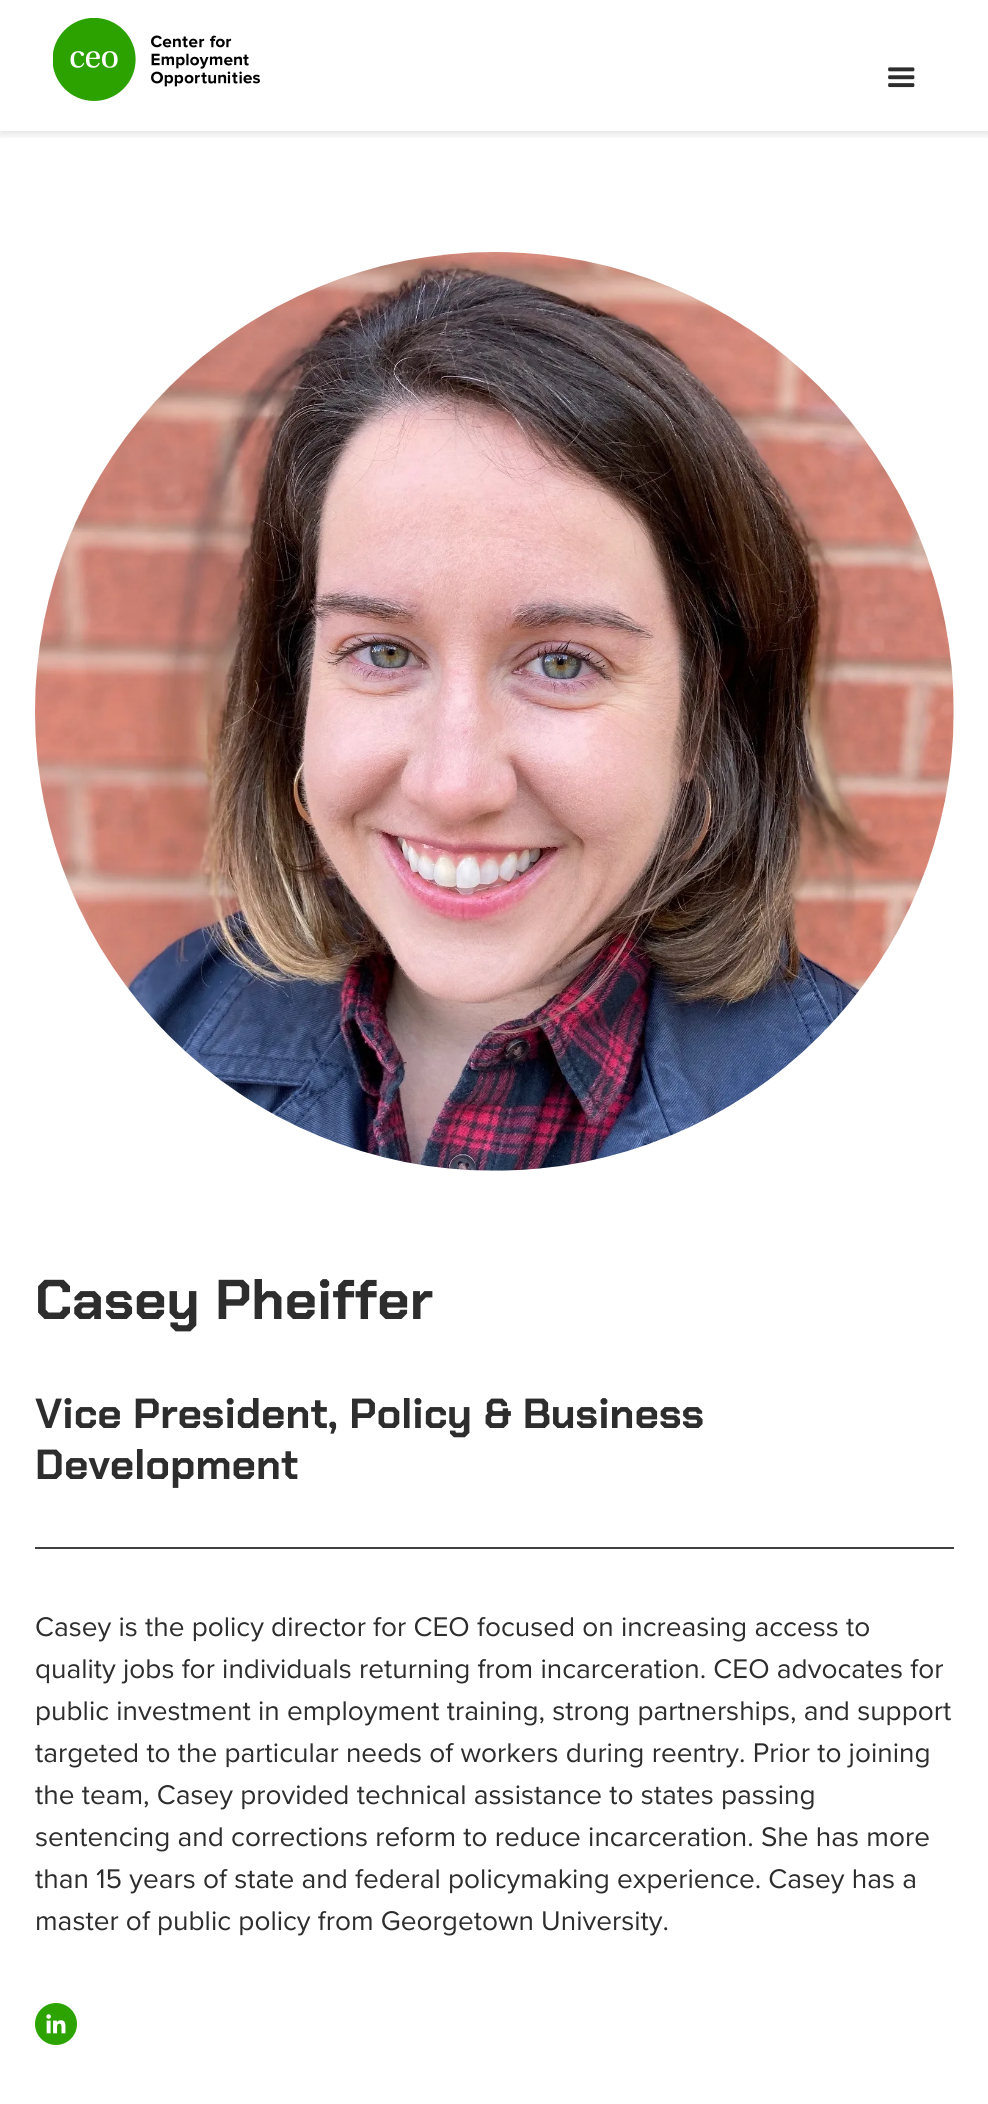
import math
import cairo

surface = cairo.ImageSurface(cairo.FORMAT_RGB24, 988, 2104)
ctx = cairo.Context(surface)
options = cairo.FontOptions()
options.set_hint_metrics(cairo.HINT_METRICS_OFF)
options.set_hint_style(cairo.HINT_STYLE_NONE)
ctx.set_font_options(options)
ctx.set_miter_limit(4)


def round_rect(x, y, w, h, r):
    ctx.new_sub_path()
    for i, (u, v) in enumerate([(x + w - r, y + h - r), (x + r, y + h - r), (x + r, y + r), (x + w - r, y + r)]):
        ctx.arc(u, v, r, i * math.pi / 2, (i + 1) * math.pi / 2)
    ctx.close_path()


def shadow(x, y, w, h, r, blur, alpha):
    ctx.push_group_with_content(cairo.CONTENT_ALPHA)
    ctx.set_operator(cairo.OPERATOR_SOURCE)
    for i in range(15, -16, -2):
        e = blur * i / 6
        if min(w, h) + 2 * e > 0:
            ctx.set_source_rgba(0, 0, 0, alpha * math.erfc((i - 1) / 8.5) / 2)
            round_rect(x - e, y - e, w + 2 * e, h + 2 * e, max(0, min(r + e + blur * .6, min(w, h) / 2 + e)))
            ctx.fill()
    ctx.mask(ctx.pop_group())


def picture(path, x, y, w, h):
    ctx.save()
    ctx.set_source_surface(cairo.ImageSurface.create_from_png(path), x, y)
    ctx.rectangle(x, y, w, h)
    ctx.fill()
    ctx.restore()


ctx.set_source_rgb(1, 1, 1)
ctx.paint()
ctx.save()
ctx.rectangle(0, 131, 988, 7)
ctx.clip()
ctx.set_source_rgb(0, 0, 0)
shadow(0, 4, 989, 131, 0, 3.5, 0.1)
ctx.restore()
picture("img1.png", 53, 18, 207, 83)
picture("img2.png", 888, 67, 27, 21)
picture("img3.png", 35, 252, 919, 919)
ctx.select_font_face("Chakra Petch", cairo.FONT_SLANT_NORMAL, cairo.FONT_WEIGHT_BOLD)
ctx.set_font_size(56)
ctx.set_source_rgb(0.176, 0.176, 0.176)
ctx.move_to(35, 1319)
ctx.show_text("Casey Pheiffer")
ctx.set_font_size(42)
ctx.move_to(35, 1428)
ctx.show_text("Vice President, Policy & Business")
ctx.move_to(35, 1479)
ctx.show_text("Development")
ctx.set_source_rgb(0.251, 0.251, 0.251)
ctx.rectangle(35, 1547, 919, 2)
ctx.fill()
ctx.select_font_face("Proxima Nova")
ctx.set_font_size(28)
ctx.set_source_rgb(0.176, 0.176, 0.176)
ctx.move_to(35, 1636)
ctx.show_text("Casey is the policy director for CEO focused on increasing access to")
ctx.move_to(35, 1678)
ctx.show_text("quality jobs for individuals returning from incarceration. CEO advocates for")
ctx.move_to(35, 1720)
ctx.show_text("public investment in employment training, strong partnerships, and support")
ctx.move_to(35, 1762)
ctx.show_text("targeted to the particular needs of workers during reentry. Prior to joining")
ctx.move_to(35, 1804)
ctx.show_text("the team, Casey provided technical assistance to states passing")
ctx.move_to(35, 1846)
ctx.show_text("sentencing and corrections reform to reduce incarceration. She has more")
ctx.move_to(35, 1888)
ctx.show_text("than 15 years of state and federal policymaking experience. Casey has a")
ctx.move_to(35, 1930)
ctx.show_text("master of public policy from Georgetown University.")
picture("img4.png", 35, 2003, 42, 42)
surface.write_to_png("page.png")
